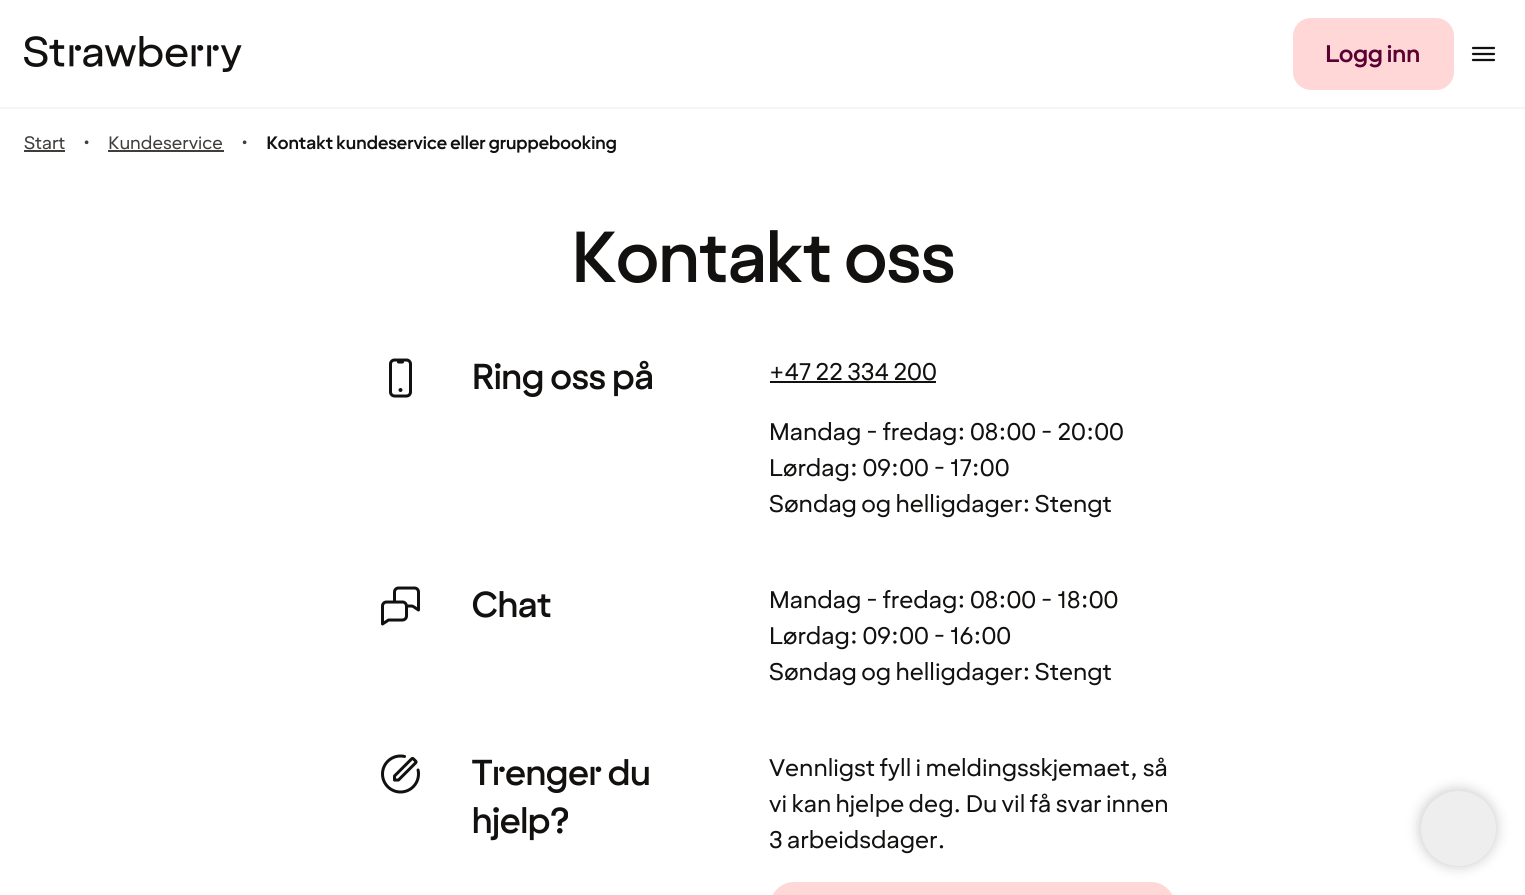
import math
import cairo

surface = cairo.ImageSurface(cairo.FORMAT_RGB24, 1525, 895)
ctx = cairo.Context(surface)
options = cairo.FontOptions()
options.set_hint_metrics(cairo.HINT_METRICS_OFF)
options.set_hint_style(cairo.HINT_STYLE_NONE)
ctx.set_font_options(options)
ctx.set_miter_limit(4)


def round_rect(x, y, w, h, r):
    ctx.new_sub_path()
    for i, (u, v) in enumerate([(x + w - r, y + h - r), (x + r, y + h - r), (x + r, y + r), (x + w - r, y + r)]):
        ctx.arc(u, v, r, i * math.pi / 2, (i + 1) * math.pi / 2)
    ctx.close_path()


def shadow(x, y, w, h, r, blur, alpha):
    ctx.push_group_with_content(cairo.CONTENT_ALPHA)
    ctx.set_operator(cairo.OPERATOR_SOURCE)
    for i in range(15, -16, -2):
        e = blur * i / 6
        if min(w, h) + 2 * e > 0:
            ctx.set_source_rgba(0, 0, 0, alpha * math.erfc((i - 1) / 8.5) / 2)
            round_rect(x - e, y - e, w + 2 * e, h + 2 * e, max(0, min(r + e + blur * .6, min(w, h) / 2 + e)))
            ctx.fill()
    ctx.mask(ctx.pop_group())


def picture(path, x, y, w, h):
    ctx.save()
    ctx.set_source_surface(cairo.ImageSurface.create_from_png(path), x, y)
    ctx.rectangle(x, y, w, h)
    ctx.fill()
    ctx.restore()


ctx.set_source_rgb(1, 1, 1)
ctx.paint()
ctx.set_source_rgb(0.969, 0.961, 0.953)
ctx.rectangle(0, 107, 1525, 2)
ctx.fill()
picture("img1.png", 24, 36, 218, 36)
ctx.set_source_rgb(1, 0.843, 0.843)
round_rect(1294.5, 19.5, 158, 69, 16.5)
ctx.fill_preserve()
ctx.set_line_width(3)
ctx.stroke()
ctx.select_font_face("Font", cairo.FONT_SLANT_NORMAL, cairo.FONT_WEIGHT_BOLD)
ctx.set_font_size(24)
ctx.set_source_rgb(0.353, 0, 0.196)
ctx.move_to(1325, 62)
ctx.show_text("Logg inn")
picture("img2.png", 1471, 46, 25, 16)
ctx.select_font_face("Font")
ctx.set_font_size(18)
ctx.set_source_rgb(0.251, 0.239, 0.231)
ctx.move_to(24, 149)
ctx.show_text("Start")
ctx.rectangle(24, 150, 41, 2)
ctx.fill()
ctx.move_to(83, 149)
ctx.show_text("•")
ctx.move_to(108, 149)
ctx.show_text("Kundeservice")
ctx.rectangle(108, 150, 116, 2)
ctx.fill()
ctx.move_to(241, 149)
ctx.show_text("•")
ctx.select_font_face("Font", cairo.FONT_SLANT_NORMAL, cairo.FONT_WEIGHT_BOLD)
ctx.set_source_rgb(0.071, 0.067, 0.063)
ctx.move_to(266, 149)
ctx.show_text("Kontakt kundeservice eller gruppebooking")
ctx.select_font_face("Font Medium")
ctx.set_font_size(72)
ctx.move_to(571, 282)
ctx.show_text("Kontakt oss")
picture("img3.png", 389, 358, 23, 40)
ctx.set_font_size(36)
ctx.move_to(472, 389)
ctx.show_text("Ring oss på")
ctx.select_font_face("Font")
ctx.set_font_size(24)
ctx.move_to(769, 380)
ctx.show_text("+47 22 334 200")
ctx.rectangle(770, 381, 166, 2)
ctx.fill()
ctx.move_to(769, 440)
ctx.show_text("Mandag - fredag: 08:00 - 20:00")
ctx.move_to(769, 476)
ctx.show_text("Lørdag: 09:00 - 17:00")
ctx.move_to(769, 512)
ctx.show_text("Søndag og helligdager: Stengt")
picture("img4.png", 381, 586, 39, 40)
ctx.select_font_face("Font Medium")
ctx.set_font_size(36)
ctx.move_to(472, 617)
ctx.show_text("Chat")
ctx.select_font_face("Font")
ctx.set_font_size(24)
ctx.move_to(769, 608)
ctx.show_text("Mandag - fredag: 08:00 - 18:00")
ctx.move_to(769, 644)
ctx.show_text("Lørdag: 09:00 - 16:00")
ctx.move_to(769, 680)
ctx.show_text("Søndag og helligdager: Stengt")
picture("img5.png", 381, 754, 39, 40)
ctx.select_font_face("Font Medium")
ctx.set_font_size(36)
ctx.move_to(472, 785)
ctx.show_text("Trenger du")
ctx.move_to(472, 833)
ctx.show_text("hjelp?")
ctx.select_font_face("Font")
ctx.set_font_size(24)
ctx.move_to(769, 776)
ctx.show_text("Vennligst fyll i meldingsskjemaet, så")
ctx.move_to(769, 812)
ctx.show_text("vi kan hjelpe deg. Du vil få svar innen")
ctx.move_to(769, 848)
ctx.show_text("3 arbeidsdager.")
ctx.set_source_rgb(1, 0.843, 0.843)
round_rect(771.5, 883.5, 402, 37, 22.5)
ctx.fill_preserve()
ctx.stroke()
ctx.set_source_rgb(0, 0, 0)
shadow(1422, 792, 72, 72, 36, 7.5, 0.28)
ctx.set_source_rgb(0.933, 0.933, 0.933)
ctx.arc(1458.5, 828.5, 37.5, 0, 2 * math.pi)
ctx.fill()
surface.write_to_png("page.png")
